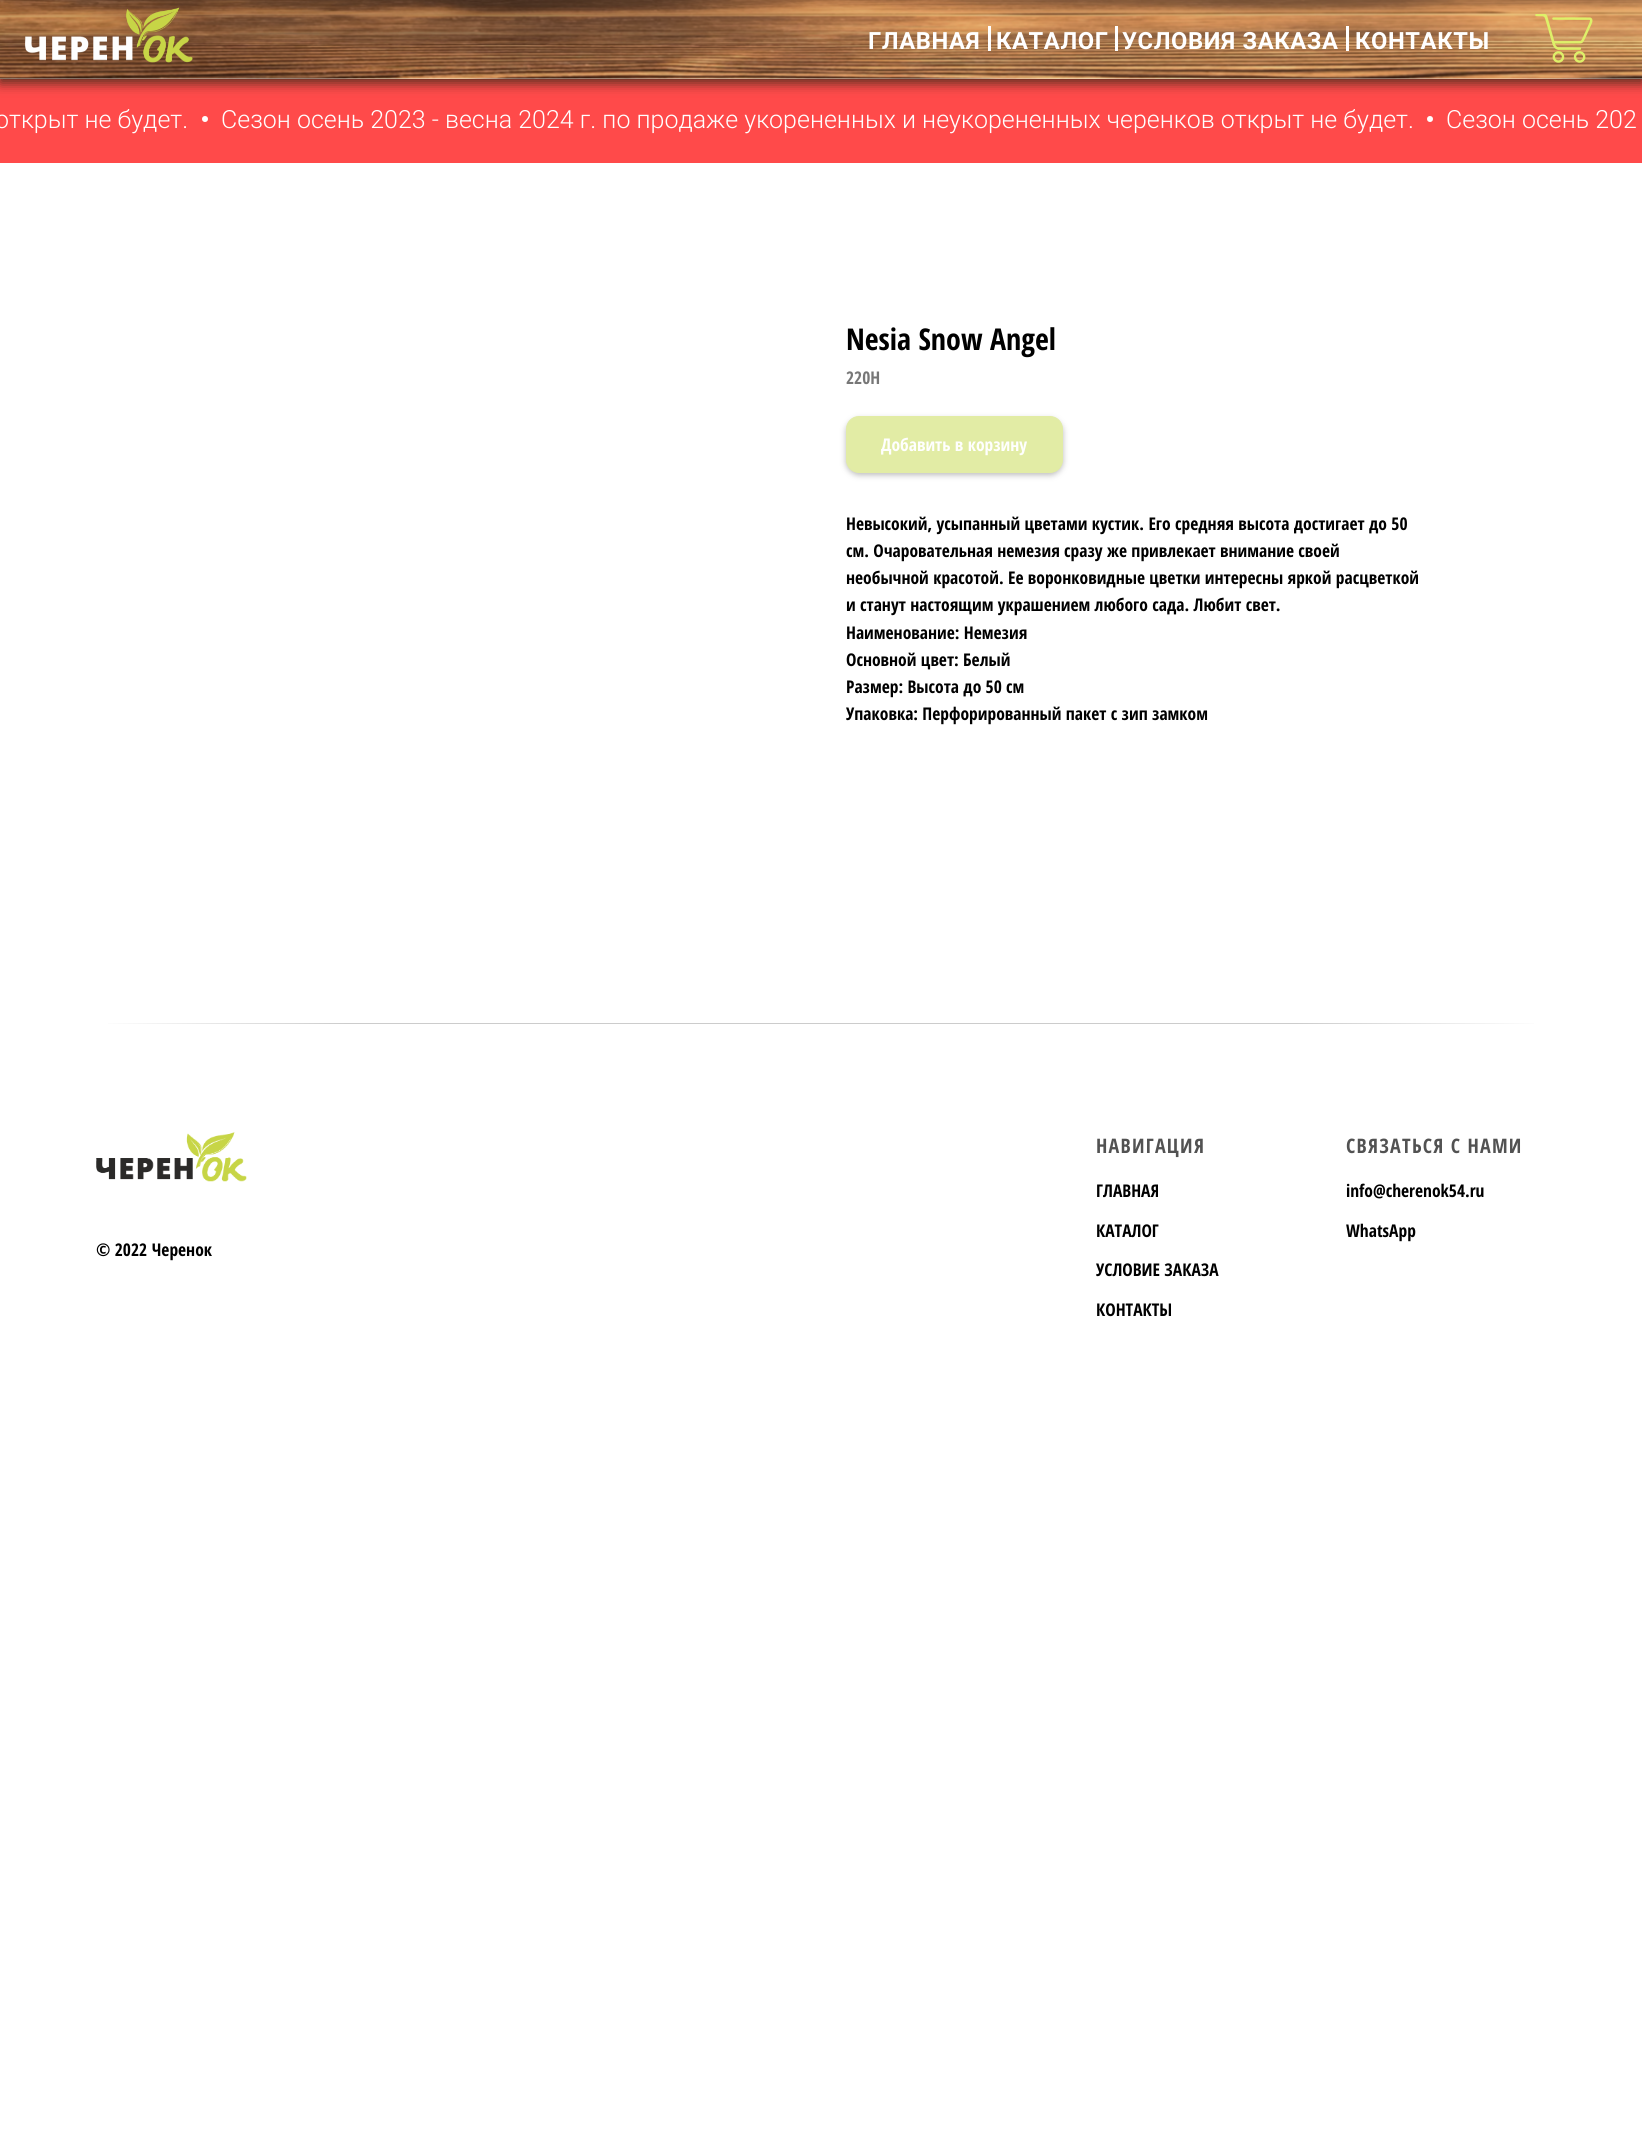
import math
import cairo

surface = cairo.ImageSurface(cairo.FORMAT_RGB24, 1642, 2130)
ctx = cairo.Context(surface)
options = cairo.FontOptions()
options.set_hint_metrics(cairo.HINT_METRICS_OFF)
options.set_hint_style(cairo.HINT_STYLE_NONE)
ctx.set_font_options(options)
ctx.set_miter_limit(4)


def spaced_text(x, y, s, letter, word):
    ctx.move_to(x, y)
    for ch in s:
        ctx.show_text(ch)
        ctx.rel_move_to(letter + word * (ch == ' '), 0)


def round_rect(x, y, w, h, r):
    ctx.new_sub_path()
    for i, (u, v) in enumerate([(x + w - r, y + h - r), (x + r, y + h - r), (x + r, y + r), (x + w - r, y + r)]):
        ctx.arc(u, v, r, i * math.pi / 2, (i + 1) * math.pi / 2)
    ctx.close_path()


def shadow(x, y, w, h, r, blur, alpha):
    ctx.push_group_with_content(cairo.CONTENT_ALPHA)
    ctx.set_operator(cairo.OPERATOR_SOURCE)
    for i in range(15, -16, -2):
        e = blur * i / 6
        if min(w, h) + 2 * e > 0:
            ctx.set_source_rgba(0, 0, 0, alpha * math.erfc((i - 1) / 8.5) / 2)
            round_rect(x - e, y - e, w + 2 * e, h + 2 * e, max(0, min(r + e + blur * .6, min(w, h) / 2 + e)))
            ctx.fill()
    ctx.mask(ctx.pop_group())


def picture(path, x, y, w, h):
    ctx.save()
    ctx.set_source_surface(cairo.ImageSurface.create_from_png(path), x, y)
    ctx.rectangle(x, y, w, h)
    ctx.fill()
    ctx.restore()


ctx.set_source_rgb(1, 1, 1)
ctx.paint()
picture("img1.png", 0, 0, 1642, 79)
ctx.set_source_rgb(1, 0.29, 0.29)
ctx.rectangle(0, 79, 1642, 84)
ctx.fill()
ctx.save()
ctx.set_fill_rule(cairo.FILL_RULE_EVEN_ODD)
ctx.new_path()
ctx.move_to(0, 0)
ctx.line_to(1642, 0)
ctx.line_to(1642, 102)
ctx.line_to(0, 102)
ctx.close_path()
ctx.move_to(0, 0)
ctx.line_to(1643, 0)
ctx.line_to(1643, 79)
ctx.line_to(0, 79)
ctx.close_path()
ctx.clip()
ctx.set_source_rgb(0.314, 0.184, 0.118)
shadow(0, 4, 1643, 79, 0, 6, 1)
ctx.restore()
picture("img2.png", 25, 7, 168, 56)
ctx.select_font_face("Roboto", cairo.FONT_SLANT_NORMAL, cairo.FONT_WEIGHT_BOLD)
ctx.set_font_size(23.75)
ctx.set_source_rgb(1, 1, 1)
spaced_text(868, 49, "ГЛАВНАЯ", 0.6, 0)
ctx.rectangle(988, 26, 3, 25)
ctx.fill()
spaced_text(996, 49, "КАТАЛОГ", 0.6, 0)
ctx.rectangle(1115, 26, 3, 25)
ctx.fill()
spaced_text(1122, 49, "УСЛОВИЯ ЗАКАЗА", 0.6, 0)
ctx.rectangle(1346, 26, 3, 25)
ctx.fill()
spaced_text(1355, 49, "КОНТАКТЫ", 0.6, 0)
picture("img3.png", 1535, 14, 58, 49)
ctx.select_font_face("Roboto Light")
ctx.set_font_size(25)
ctx.move_to(-5, 128)
ctx.show_text("открыт не будет.")
ctx.new_path()
ctx.arc(205, 119, 3, 0, 2 * math.pi)
ctx.fill()
ctx.move_to(221, 128)
ctx.show_text("Cезон осень 2023 - весна 2024 г. по продаже укорененных и неукорененных черенков открыт не будет.")
ctx.new_path()
ctx.arc(1430, 119, 3, 0, 2 * math.pi)
ctx.fill()
ctx.move_to(1446, 128)
ctx.show_text("Cезон осень 202")
ctx.select_font_face("Open Sans Condensed", cairo.FONT_SLANT_NORMAL, cairo.FONT_WEIGHT_BOLD)
ctx.set_font_size(30)
ctx.set_source_rgb(0, 0, 0)
ctx.move_to(846, 350)
ctx.show_text("Nesia Snow Angel")
ctx.set_font_size(17.5)
ctx.set_source_rgb(0.467, 0.467, 0.467)
ctx.move_to(846, 384)
ctx.show_text("220Н")
ctx.set_source_rgb(0.733, 0.733, 0.733)
shadow(846, 419, 217, 56, 13, 3, 1)
ctx.set_source_rgb(0.886, 0.922, 0.647)
round_rect(846.5, 416.5, 216, 56, 12.5)
ctx.fill_preserve()
ctx.set_line_width(1)
ctx.stroke()
ctx.set_source_rgb(1, 1, 1)
ctx.move_to(881, 451)
ctx.show_text("Добавить в корзину")
ctx.set_source_rgb(0, 0, 0)
ctx.move_to(846, 530)
ctx.show_text("Невысокий, усыпанный цветами кустик. Его средняя высота достигает до 50")
ctx.move_to(846, 557)
ctx.show_text("см. Очаровательная немезия сразу же привлекает внимание своей")
ctx.move_to(846, 584)
ctx.show_text("необычной красотой. Ее воронковидные цветки интересны яркой расцветкой")
ctx.move_to(846, 611)
ctx.show_text("и станут настоящим украшением любого сада. Любит свет.")
ctx.move_to(846, 639)
ctx.show_text("Наименование: Немезия")
ctx.move_to(846, 666)
ctx.show_text("Основной цвет: Белый")
ctx.move_to(846, 693)
ctx.show_text("Размер: Высота до 50 см")
ctx.move_to(846, 720)
ctx.show_text("Упаковка: Перфорированный пакет с зип замком")
gradient = cairo.LinearGradient(346, 1023, 96, 1023)
gradient.add_color_stop_rgba(0, 0.8, 0.8, 0.8, 1)
gradient.add_color_stop_rgba(1, 1, 1, 1, 1)
ctx.set_source(gradient)
ctx.rectangle(108, 1023, 238, 1)
ctx.fill()
ctx.set_source_rgb(0.8, 0.8, 0.8)
ctx.rectangle(346, 1023, 950, 1)
ctx.fill()
gradient = cairo.LinearGradient(1296, 1023, 1546, 1023)
gradient.add_color_stop_rgba(0, 0.8, 0.8, 0.8, 1)
gradient.add_color_stop_rgba(1, 1, 1, 1, 1)
ctx.set_source(gradient)
ctx.rectangle(1296, 1023, 238, 1)
ctx.fill()
picture("img4.png", 96, 1132, 151, 50)
ctx.set_source_rgb(0, 0, 0)
ctx.move_to(96, 1256)
ctx.show_text("© 2022 Черенок")
ctx.set_font_size(20)
ctx.set_source_rgb(0.322, 0.322, 0.322)
spaced_text(1096, 1153, "НАВИГАЦИЯ", 1.25, 0)
ctx.set_font_size(17.5)
ctx.set_source_rgb(0, 0, 0)
ctx.move_to(1096, 1197)
ctx.show_text("ГЛАВНАЯ")
ctx.move_to(1096, 1237)
ctx.show_text("КАТАЛОГ")
ctx.move_to(1096, 1276)
ctx.show_text("УСЛОВИЕ ЗАКАЗА")
ctx.move_to(1096, 1316)
ctx.show_text("КОНТАКТЫ")
ctx.set_font_size(20)
ctx.set_source_rgb(0.322, 0.322, 0.322)
spaced_text(1346, 1153, "СВЯЗАТЬСЯ С НАМИ", 1.25, 0)
ctx.set_font_size(17.5)
ctx.set_source_rgb(0, 0, 0)
ctx.move_to(1346, 1197)
ctx.show_text("info@cherenok54.ru")
ctx.move_to(1346, 1237)
ctx.show_text("WhatsApp")
surface.write_to_png("page.png")
